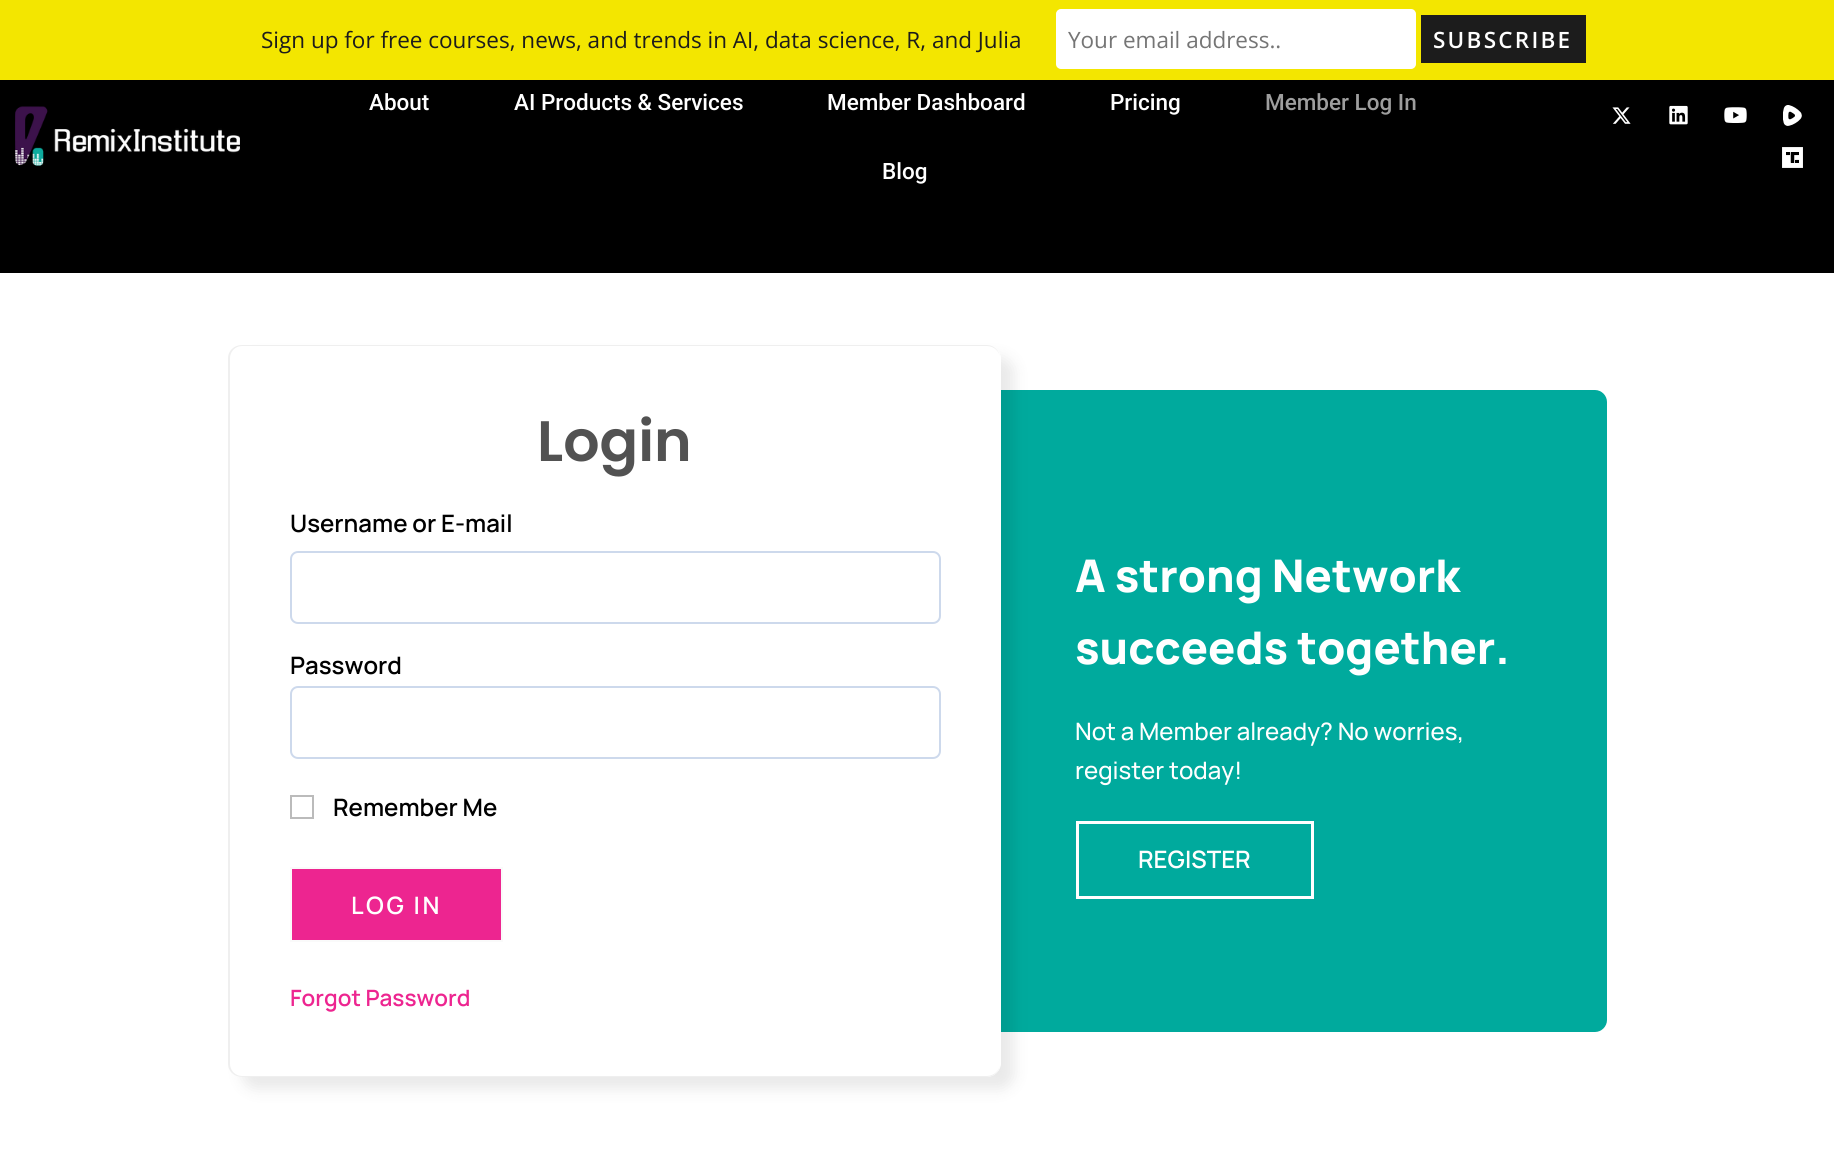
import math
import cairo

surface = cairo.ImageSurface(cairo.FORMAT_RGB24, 1834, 1149)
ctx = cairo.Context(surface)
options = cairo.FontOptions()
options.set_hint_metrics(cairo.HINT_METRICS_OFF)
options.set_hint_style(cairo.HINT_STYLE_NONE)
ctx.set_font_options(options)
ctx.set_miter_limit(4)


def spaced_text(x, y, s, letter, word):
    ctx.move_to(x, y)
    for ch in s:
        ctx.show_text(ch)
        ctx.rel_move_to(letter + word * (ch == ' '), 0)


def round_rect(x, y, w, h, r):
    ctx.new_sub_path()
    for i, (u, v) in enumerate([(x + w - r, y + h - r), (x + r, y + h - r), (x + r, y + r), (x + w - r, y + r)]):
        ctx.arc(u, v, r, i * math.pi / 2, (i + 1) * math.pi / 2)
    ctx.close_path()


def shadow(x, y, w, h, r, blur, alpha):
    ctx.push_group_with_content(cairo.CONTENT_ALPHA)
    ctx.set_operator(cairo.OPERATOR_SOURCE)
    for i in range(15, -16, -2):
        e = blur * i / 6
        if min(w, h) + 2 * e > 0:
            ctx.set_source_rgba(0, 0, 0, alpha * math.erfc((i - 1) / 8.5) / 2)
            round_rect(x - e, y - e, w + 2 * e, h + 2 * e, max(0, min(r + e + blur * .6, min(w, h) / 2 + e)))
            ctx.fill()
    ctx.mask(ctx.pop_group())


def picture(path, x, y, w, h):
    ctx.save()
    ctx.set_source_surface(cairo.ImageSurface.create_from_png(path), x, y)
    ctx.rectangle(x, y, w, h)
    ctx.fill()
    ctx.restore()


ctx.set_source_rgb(1, 1, 1)
ctx.paint()
ctx.set_source_rgb(0.953, 0.902, 0)
ctx.rectangle(0, 0, 1834, 80)
ctx.fill()
ctx.select_font_face("Open Sans")
ctx.set_font_size(22.5)
ctx.set_source_rgb(0.11, 0.11, 0.11)
ctx.move_to(261, 48)
ctx.show_text("Sign up for free courses, news, and trends in AI, data science, R, and Julia")
ctx.set_source_rgb(1, 1, 1)
round_rect(1057, 10, 358, 58, 4)
ctx.fill_preserve()
ctx.stroke()
ctx.set_source_rgb(0.459, 0.459, 0.459)
ctx.move_to(1068, 48)
ctx.show_text("Your email address..")
ctx.set_source_rgb(0.11, 0.11, 0.11)
ctx.rectangle(1421, 15, 165, 48)
ctx.fill()
ctx.select_font_face("Open Sans SemiBold")
ctx.set_source_rgb(1, 1, 1)
spaced_text(1433, 48, "SUBSCRIBE", 2.25, 0)
ctx.set_source_rgb(0, 0, 0)
ctx.rectangle(0, 80, 1834, 193)
ctx.fill()
picture("img1.png", 15, 106, 225, 60)
ctx.select_font_face("Roboto Medium")
ctx.set_source_rgb(1, 1, 1)
ctx.move_to(369, 110)
ctx.show_text("About")
ctx.move_to(514, 110)
ctx.show_text("AI Products & Services")
ctx.move_to(827, 110)
ctx.show_text("Member Dashboard")
ctx.move_to(1110, 110)
ctx.show_text("Pricing")
ctx.set_source_rgb(0.62, 0.62, 0.62)
ctx.move_to(1265, 110)
ctx.show_text("Member Log In")
ctx.set_source_rgb(1, 1, 1)
ctx.move_to(882, 179)
ctx.show_text("Blog")
picture("img2.png", 1612, 107, 19, 17)
picture("img3.png", 1669, 105, 19, 20)
picture("img4.png", 1724, 107, 23, 16)
picture("img5.png", 1783, 105, 19, 21)
picture("img6.png", 1782, 147, 21, 21)
ctx.set_source_rgb(0, 0.667, 0.616)
ctx.new_path()
ctx.move_to(1001, 390)
ctx.line_to(1595, 390)
ctx.curve_to(1601.5, 390, 1607, 395.5, 1607, 402)
ctx.line_to(1607, 1020)
ctx.curve_to(1607, 1026.5, 1601.5, 1032, 1595, 1032)
ctx.line_to(1001, 1032)
ctx.close_path()
ctx.fill()
ctx.save()
ctx.set_fill_rule(cairo.FILL_RULE_EVEN_ODD)
ctx.new_path()
ctx.move_to(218, 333)
ctx.line_to(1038, 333)
ctx.line_to(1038, 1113)
ctx.line_to(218, 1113)
ctx.close_path()
ctx.move_to(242, 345)
ctx.line_to(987, 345)
ctx.curve_to(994.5, 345, 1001, 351.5, 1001, 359)
ctx.line_to(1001, 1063)
ctx.curve_to(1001, 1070.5, 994.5, 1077, 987, 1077)
ctx.line_to(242, 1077)
ctx.curve_to(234.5, 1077, 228, 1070.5, 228, 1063)
ctx.line_to(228, 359)
ctx.curve_to(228, 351.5, 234.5, 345, 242, 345)
ctx.close_path()
ctx.clip()
ctx.set_source_rgb(0, 0, 0)
shadow(242, 357, 772, 732, 14, 7.5, 0.09)
ctx.restore()
ctx.set_source_rgb(0.937, 0.937, 0.937)
ctx.set_fill_rule(cairo.FILL_RULE_EVEN_ODD)
ctx.new_path()
ctx.move_to(242, 345)
ctx.line_to(987, 345)
ctx.curve_to(994, 345, 1000, 351, 1000, 358)
ctx.line_to(1000, 1064)
ctx.curve_to(1000, 1071, 994, 1077, 987, 1077)
ctx.line_to(242, 1077)
ctx.curve_to(234, 1077, 228, 1071, 228, 1064)
ctx.line_to(228, 358)
ctx.curve_to(228, 351, 234, 345, 242, 345)
ctx.close_path()
ctx.move_to(242, 346)
ctx.line_to(987, 346)
ctx.curve_to(994, 346, 1000, 352, 1000, 358)
ctx.line_to(1000, 1064)
ctx.curve_to(1000, 1070, 994, 1076, 987, 1076)
ctx.line_to(242, 1076)
ctx.curve_to(235, 1076, 230, 1070, 230, 1064)
ctx.line_to(230, 358)
ctx.curve_to(230, 352, 235, 346, 242, 346)
ctx.close_path()
ctx.fill()
ctx.select_font_face("Poppins SemiBold")
ctx.set_font_size(57)
ctx.set_source_rgb(0.322, 0.322, 0.322)
ctx.move_to(537, 461)
ctx.show_text("Login")
ctx.select_font_face("Manrope SemiBold")
ctx.set_font_size(24)
ctx.set_source_rgb(0, 0, 0)
ctx.move_to(290, 532)
ctx.show_text("Username or E-mail")
round_rect(291, 552, 649, 71, 7)
ctx.set_source_rgb(0.804, 0.851, 0.925)
ctx.stroke()
ctx.set_source_rgb(0, 0, 0)
ctx.move_to(290, 674)
ctx.show_text("Password")
round_rect(291, 687, 649, 71, 7)
ctx.set_source_rgb(0.804, 0.851, 0.925)
ctx.stroke()
ctx.rectangle(291, 796, 22, 22)
ctx.set_source_rgb(0.733, 0.733, 0.733)
ctx.stroke()
ctx.set_source_rgb(0, 0, 0)
ctx.move_to(333, 816)
ctx.show_text("Remember Me")
ctx.set_source_rgb(0.929, 0.145, 0.565)
ctx.rectangle(291, 868, 211, 73)
ctx.fill_preserve()
ctx.set_source_rgb(0.98, 0.98, 0.98)
ctx.stroke()
ctx.set_source_rgb(1, 1, 1)
spaced_text(351, 914, "LOG IN", 2.5, 0)
ctx.set_font_size(22.5)
ctx.set_source_rgb(0.929, 0.145, 0.565)
ctx.move_to(290, 1006)
ctx.show_text("Forgot Password")
ctx.select_font_face("Manrope ExtraBold")
ctx.set_font_size(45)
ctx.set_source_rgb(1, 1, 1)
ctx.move_to(1075, 592)
ctx.show_text("A strong Network")
ctx.move_to(1075, 664)
ctx.show_text("succeeds together.")
ctx.select_font_face("Manrope Medium")
ctx.set_font_size(24)
ctx.move_to(1075, 740)
ctx.show_text("Not a Member already? No worries,")
ctx.move_to(1075, 779)
ctx.show_text("register today!")
ctx.rectangle(1077.5, 822.5, 235, 75)
ctx.set_line_width(3)
ctx.stroke()
ctx.select_font_face("Manrope SemiBold")
ctx.move_to(1138, 868)
ctx.show_text("REGISTER")
surface.write_to_png("page.png")
